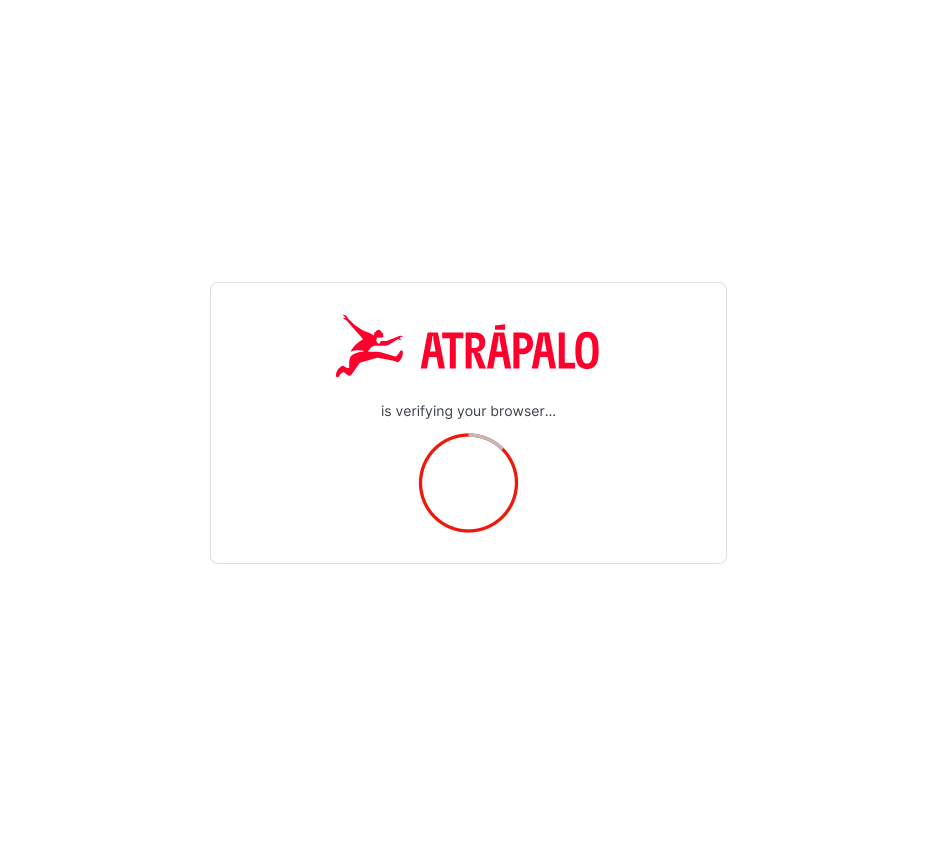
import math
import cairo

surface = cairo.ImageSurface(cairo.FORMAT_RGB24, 937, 846)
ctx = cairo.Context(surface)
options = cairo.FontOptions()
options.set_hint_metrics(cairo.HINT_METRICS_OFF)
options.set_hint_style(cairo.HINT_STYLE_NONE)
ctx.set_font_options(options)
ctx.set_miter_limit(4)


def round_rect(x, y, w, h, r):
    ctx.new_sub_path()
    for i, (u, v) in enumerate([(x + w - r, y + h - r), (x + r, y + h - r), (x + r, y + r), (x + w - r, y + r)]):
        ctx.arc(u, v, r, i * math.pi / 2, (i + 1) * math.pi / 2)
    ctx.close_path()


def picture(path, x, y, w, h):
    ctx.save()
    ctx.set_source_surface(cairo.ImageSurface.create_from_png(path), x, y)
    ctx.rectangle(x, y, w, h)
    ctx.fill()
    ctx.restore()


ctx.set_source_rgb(1, 1, 1)
ctx.paint()
round_rect(210.5, 282.5, 516, 281, 7.5)
ctx.set_source_rgb(0.863, 0.878, 0.894)
ctx.set_line_width(1)
ctx.stroke()
picture("img1.png", 336, 314, 263, 64)
ctx.select_font_face("Inter")
ctx.set_font_size(14)
ctx.set_source_rgb(0.227, 0.259, 0.29)
ctx.move_to(381, 416)
ctx.show_text("is verifying your browser...")
ctx.new_path()
ctx.move_to(420.5, 483)
ctx.curve_to(420.5, 456.5, 442, 435, 468.5, 435)
ctx.curve_to(495, 435, 516.5, 456.5, 516.5, 483)
ctx.curve_to(516.5, 509.5, 495, 531, 468.5, 531)
ctx.curve_to(442, 531, 420.5, 509.5, 420.5, 483)
ctx.close_path()
ctx.set_source_rgb(0.922, 0.102, 0.047)
ctx.set_line_width(3.3)
ctx.stroke()
ctx.new_path()
ctx.move_to(502.5, 449)
ctx.curve_to(493.5, 440, 481, 435, 468.5, 435)
ctx.set_source_rgb(0.761, 0.729, 0.71)
ctx.stroke()
surface.write_to_png("page.png")
